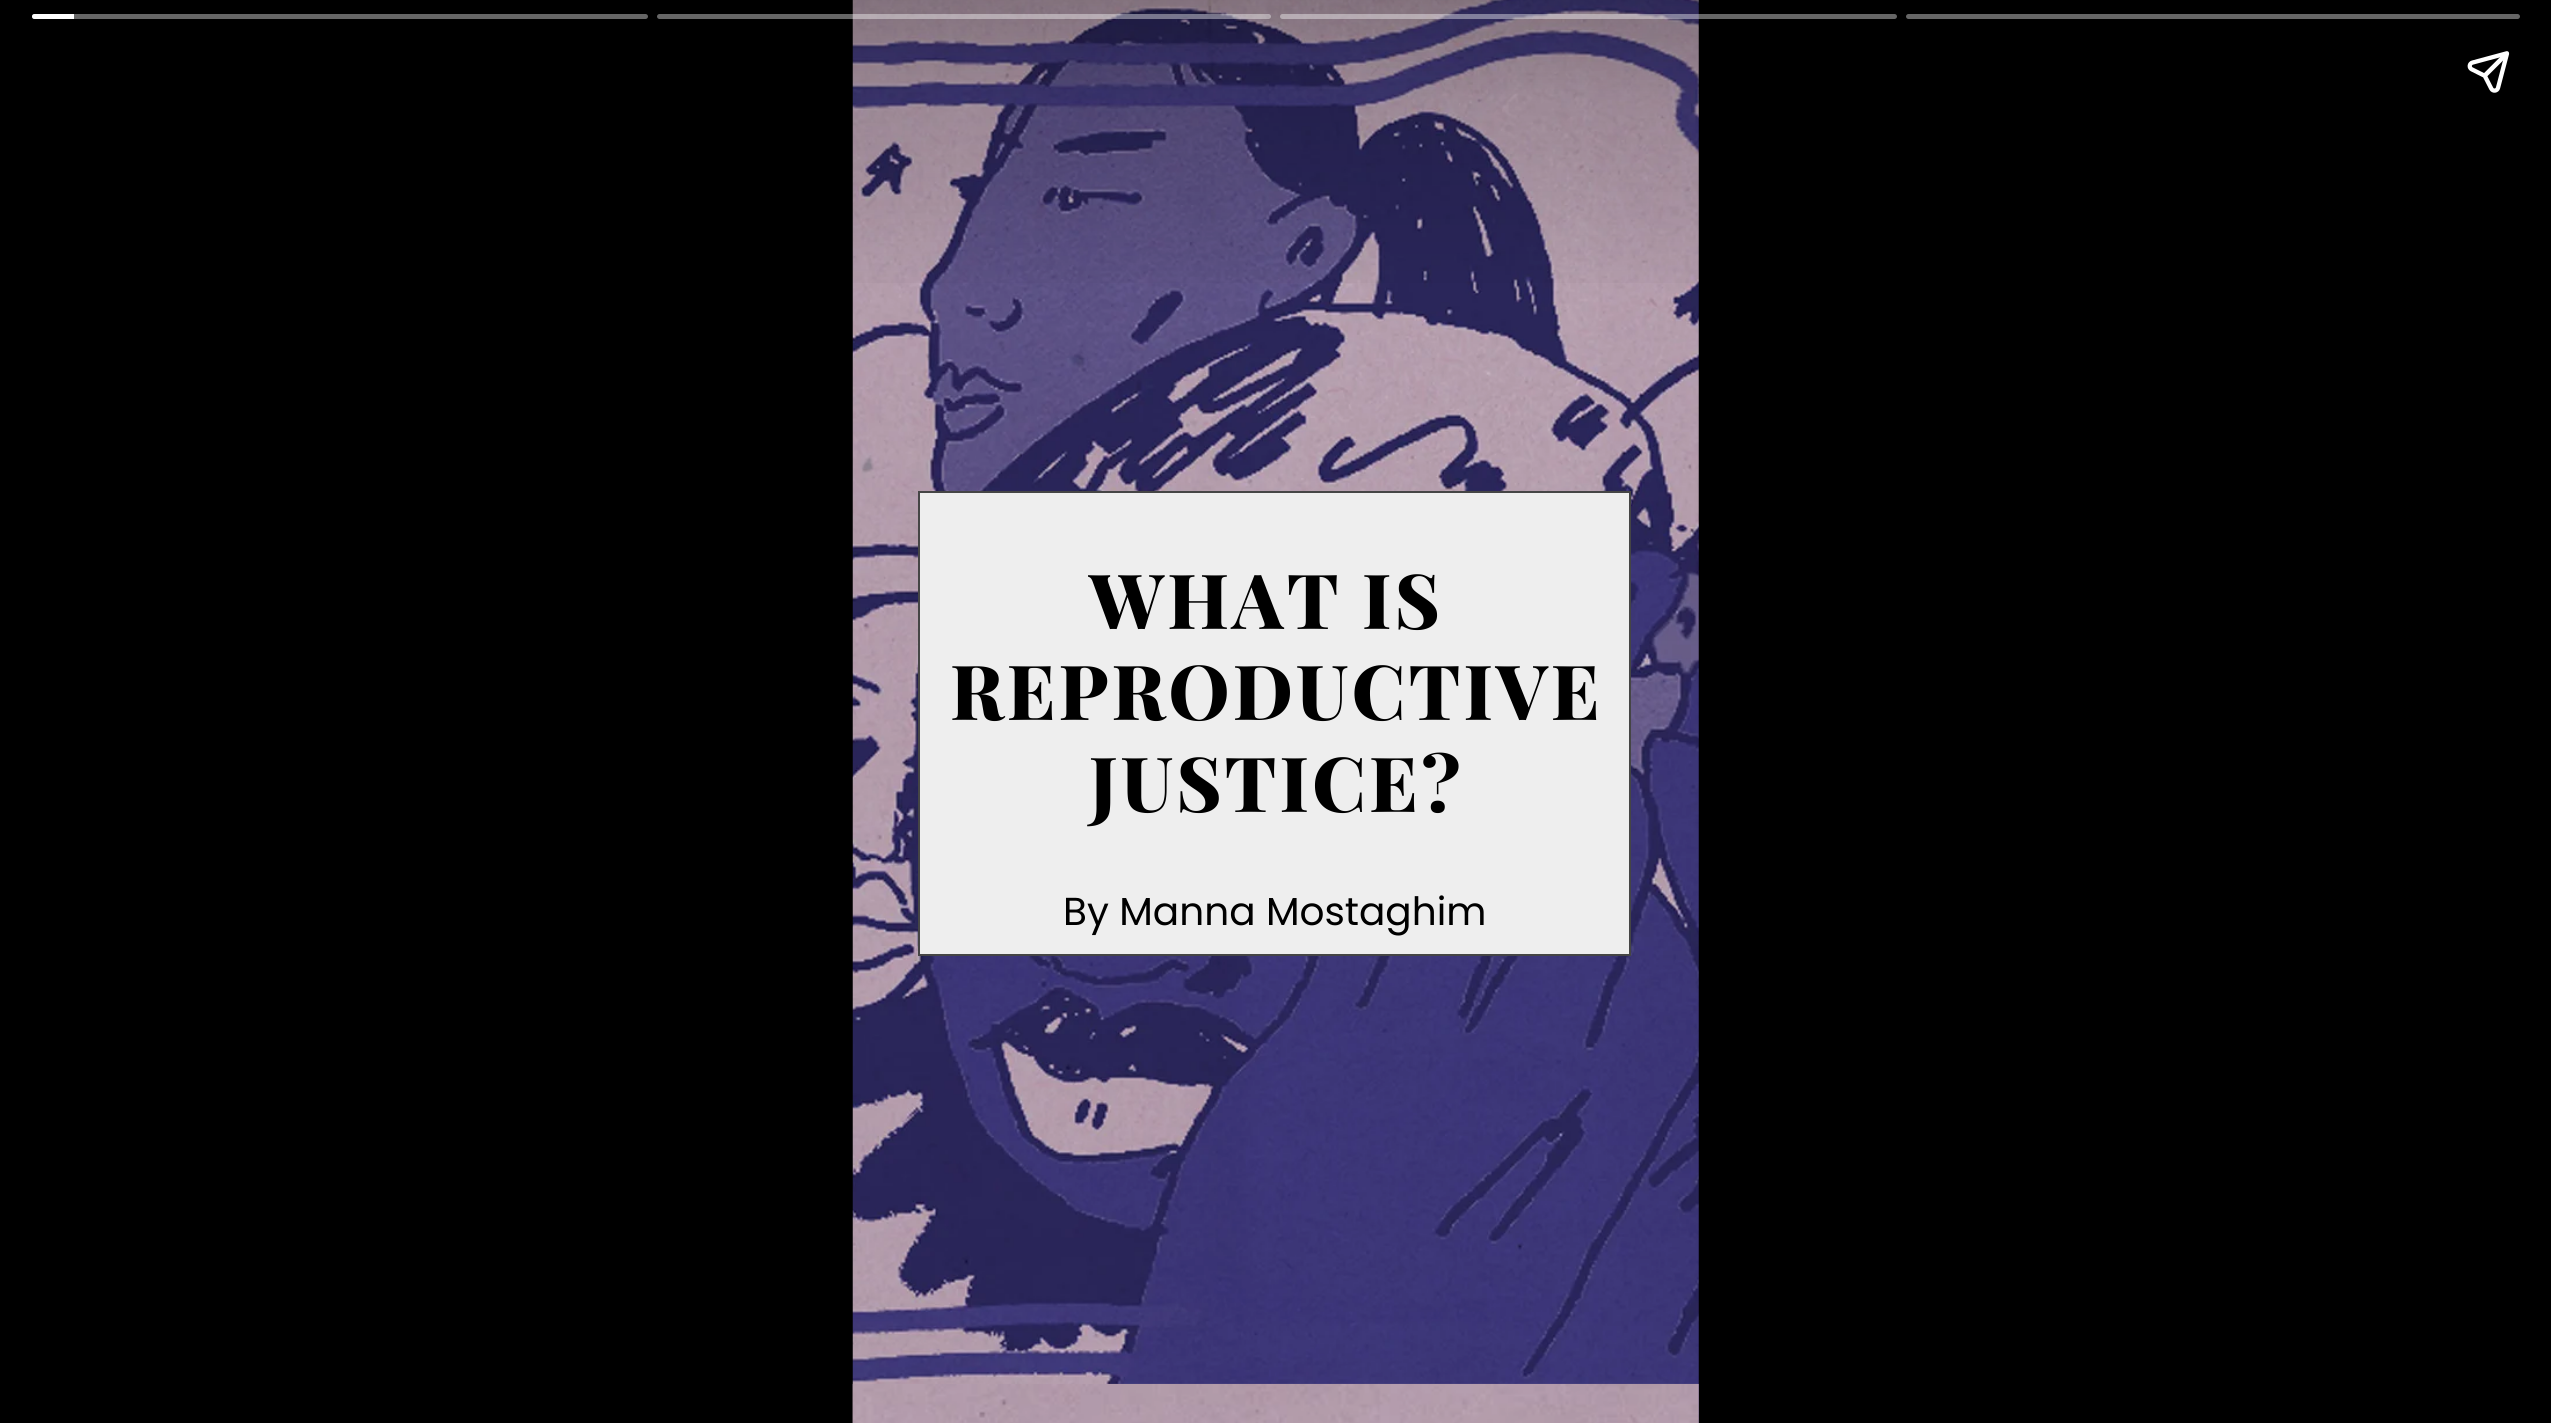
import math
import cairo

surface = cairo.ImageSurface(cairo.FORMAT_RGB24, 2551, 1423)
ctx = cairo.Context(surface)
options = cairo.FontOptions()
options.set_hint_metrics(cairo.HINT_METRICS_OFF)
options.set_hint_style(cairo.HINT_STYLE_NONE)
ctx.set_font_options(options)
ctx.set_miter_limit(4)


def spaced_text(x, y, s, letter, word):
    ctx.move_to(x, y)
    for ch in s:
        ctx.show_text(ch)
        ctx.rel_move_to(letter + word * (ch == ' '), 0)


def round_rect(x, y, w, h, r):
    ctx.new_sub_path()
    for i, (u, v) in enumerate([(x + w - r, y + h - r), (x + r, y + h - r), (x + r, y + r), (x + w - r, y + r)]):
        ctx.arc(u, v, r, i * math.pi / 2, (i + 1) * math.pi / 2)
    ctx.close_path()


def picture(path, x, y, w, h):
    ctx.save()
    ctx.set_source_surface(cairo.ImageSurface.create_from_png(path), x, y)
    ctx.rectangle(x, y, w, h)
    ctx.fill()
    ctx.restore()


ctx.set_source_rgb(0, 0, 0)
ctx.paint()
picture("img2.png", 852, 0, 847, 1423)
gradient = cairo.LinearGradient(1276, 0, 1276, 315)
gradient.add_color_stop_rgba(0, 0, 0, 0, 0.27)
gradient.add_color_stop_rgba(0.33, 0, 0, 0, 0.13)
gradient.add_color_stop_rgba(0.67, 0, 0, 0, 0.07)
gradient.add_color_stop_rgba(1, 0, 0, 0, 0)
ctx.set_source(gradient)
ctx.rectangle(852, 0, 847, 283)
ctx.fill()
ctx.set_source_rgb(0.4, 0.4, 0.4)
round_rect(32, 14, 616, 5, 2.5)
ctx.fill()
ctx.set_source_rgb(1, 1, 1)
ctx.new_path()
ctx.move_to(34.5, 14)
ctx.line_to(74, 14)
ctx.line_to(74, 19)
ctx.line_to(34.5, 19)
ctx.curve_to(33, 19, 32, 18, 32, 16.5)
ctx.curve_to(32, 15, 33, 14, 34.5, 14)
ctx.close_path()
ctx.fill()
ctx.set_source_rgba(1, 1, 1, 0.4)
round_rect(657, 14, 614, 5, 2.5)
ctx.fill()
round_rect(1280, 14, 617, 5, 2.5)
ctx.fill()
ctx.set_source_rgb(0.4, 0.4, 0.4)
round_rect(1906, 14, 614, 5, 2.5)
ctx.fill()
picture("img1.png", 2467, 51, 43, 42)
ctx.rectangle(919, 492, 711, 463)
ctx.set_source_rgb(0.271, 0.271, 0.271)
ctx.stroke()
ctx.set_source_rgb(0.933, 0.933, 0.933)
ctx.rectangle(920, 493, 709, 461)
ctx.fill()
ctx.select_font_face("Playfair Display ExtraBold")
ctx.set_font_size(76)
ctx.set_source_rgb(0, 0, 0)
spaced_text(1089, 629, "WHAT IS", 3, 0)
spaced_text(950, 720, "REPRODUCTIVE", 3, 0)
spaced_text(1089, 812, "JUSTICE?", 3, 0)
ctx.select_font_face("Poppins")
ctx.set_font_size(39)
ctx.move_to(1063, 925)
ctx.show_text("By Manna Mostaghim")
picture("img3.png", 852, 1383, 847, 40)
surface.write_to_png("page.png")
